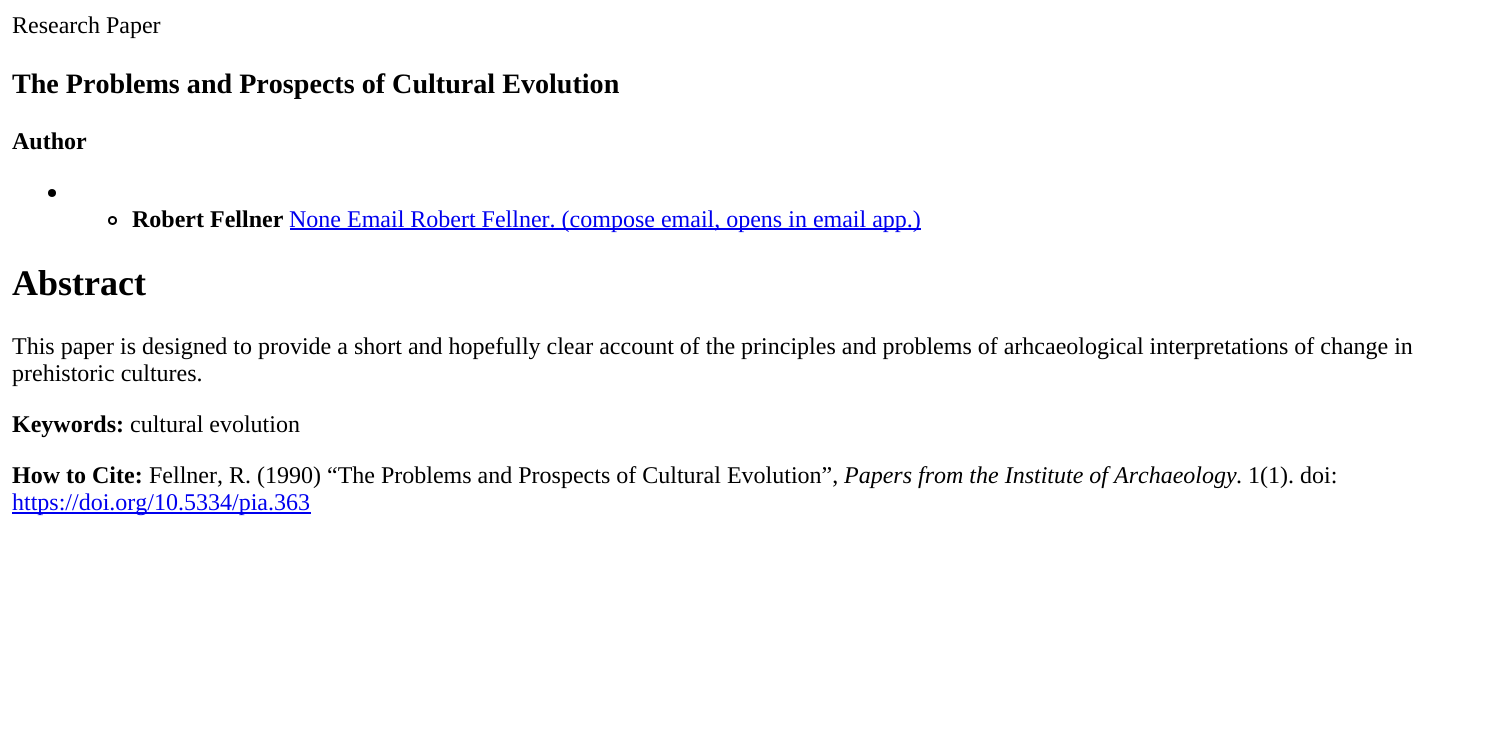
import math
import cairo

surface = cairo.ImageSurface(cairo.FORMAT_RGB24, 1485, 729)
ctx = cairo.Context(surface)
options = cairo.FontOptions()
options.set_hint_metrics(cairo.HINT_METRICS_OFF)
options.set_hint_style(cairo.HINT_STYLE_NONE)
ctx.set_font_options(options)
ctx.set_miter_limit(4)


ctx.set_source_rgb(1, 1, 1)
ctx.paint()
ctx.select_font_face("Liberation Serif")
ctx.set_font_size(24)
ctx.set_source_rgb(0, 0, 0)
ctx.move_to(12, 33)
ctx.show_text("Research Paper")
ctx.select_font_face("Liberation Serif", cairo.FONT_SLANT_NORMAL, cairo.FONT_WEIGHT_BOLD)
ctx.set_font_size(28.1)
ctx.move_to(12, 93)
ctx.show_text("The Problems and Prospects of Cultural Evolution")
ctx.set_font_size(24)
ctx.move_to(12, 149)
ctx.show_text("Author")
ctx.new_path()
ctx.arc(52, 193, 4, 0, 2 * math.pi)
ctx.fill()
ctx.arc(112.5, 220.5, 3.5, 0, 2 * math.pi)
ctx.stroke()
ctx.move_to(132, 227)
ctx.show_text("Robert Fellner")
ctx.set_source_rgb(0, 0, 0.933)
ctx.rectangle(290, 228, 631, 2)
ctx.fill()
ctx.select_font_face("Liberation Serif")
ctx.move_to(289, 227)
ctx.show_text("None Email Robert Fellner. (compose email, opens in email app.)")
ctx.select_font_face("Liberation Serif", cairo.FONT_SLANT_NORMAL, cairo.FONT_WEIGHT_BOLD)
ctx.set_font_size(36)
ctx.set_source_rgb(0, 0, 0)
ctx.move_to(12, 295)
ctx.show_text("Abstract")
ctx.select_font_face("Liberation Serif")
ctx.set_font_size(24)
ctx.move_to(12, 354)
ctx.show_text("This paper is designed to provide a short and hopefully clear account of the principles and problems of arhcaeological interpretations of change in")
ctx.move_to(12, 381)
ctx.show_text("prehistoric cultures.")
ctx.select_font_face("Liberation Serif", cairo.FONT_SLANT_NORMAL, cairo.FONT_WEIGHT_BOLD)
ctx.move_to(12, 432)
ctx.show_text("Keywords:")
ctx.select_font_face("Liberation Serif")
ctx.move_to(130, 432)
ctx.show_text("cultural evolution")
ctx.select_font_face("Liberation Serif", cairo.FONT_SLANT_NORMAL, cairo.FONT_WEIGHT_BOLD)
ctx.move_to(12, 483)
ctx.show_text("How to Cite:")
ctx.select_font_face("Liberation Serif")
ctx.move_to(149, 483)
ctx.show_text("Fellner, R. (1990) “The Problems and Prospects of Cultural Evolution”,")
ctx.select_font_face("Liberation Serif", cairo.FONT_SLANT_ITALIC)
ctx.move_to(844, 483)
ctx.show_text("Papers from the Institute of Archaeology")
ctx.select_font_face("Liberation Serif")
ctx.move_to(1236, 483)
ctx.show_text(". 1(1). doi:")
ctx.set_source_rgb(0, 0, 0.933)
ctx.rectangle(12, 512, 299, 2)
ctx.fill()
ctx.move_to(12, 510)
ctx.show_text("https://doi.org/10.5334/pia.363")
surface.write_to_png("page.png")
